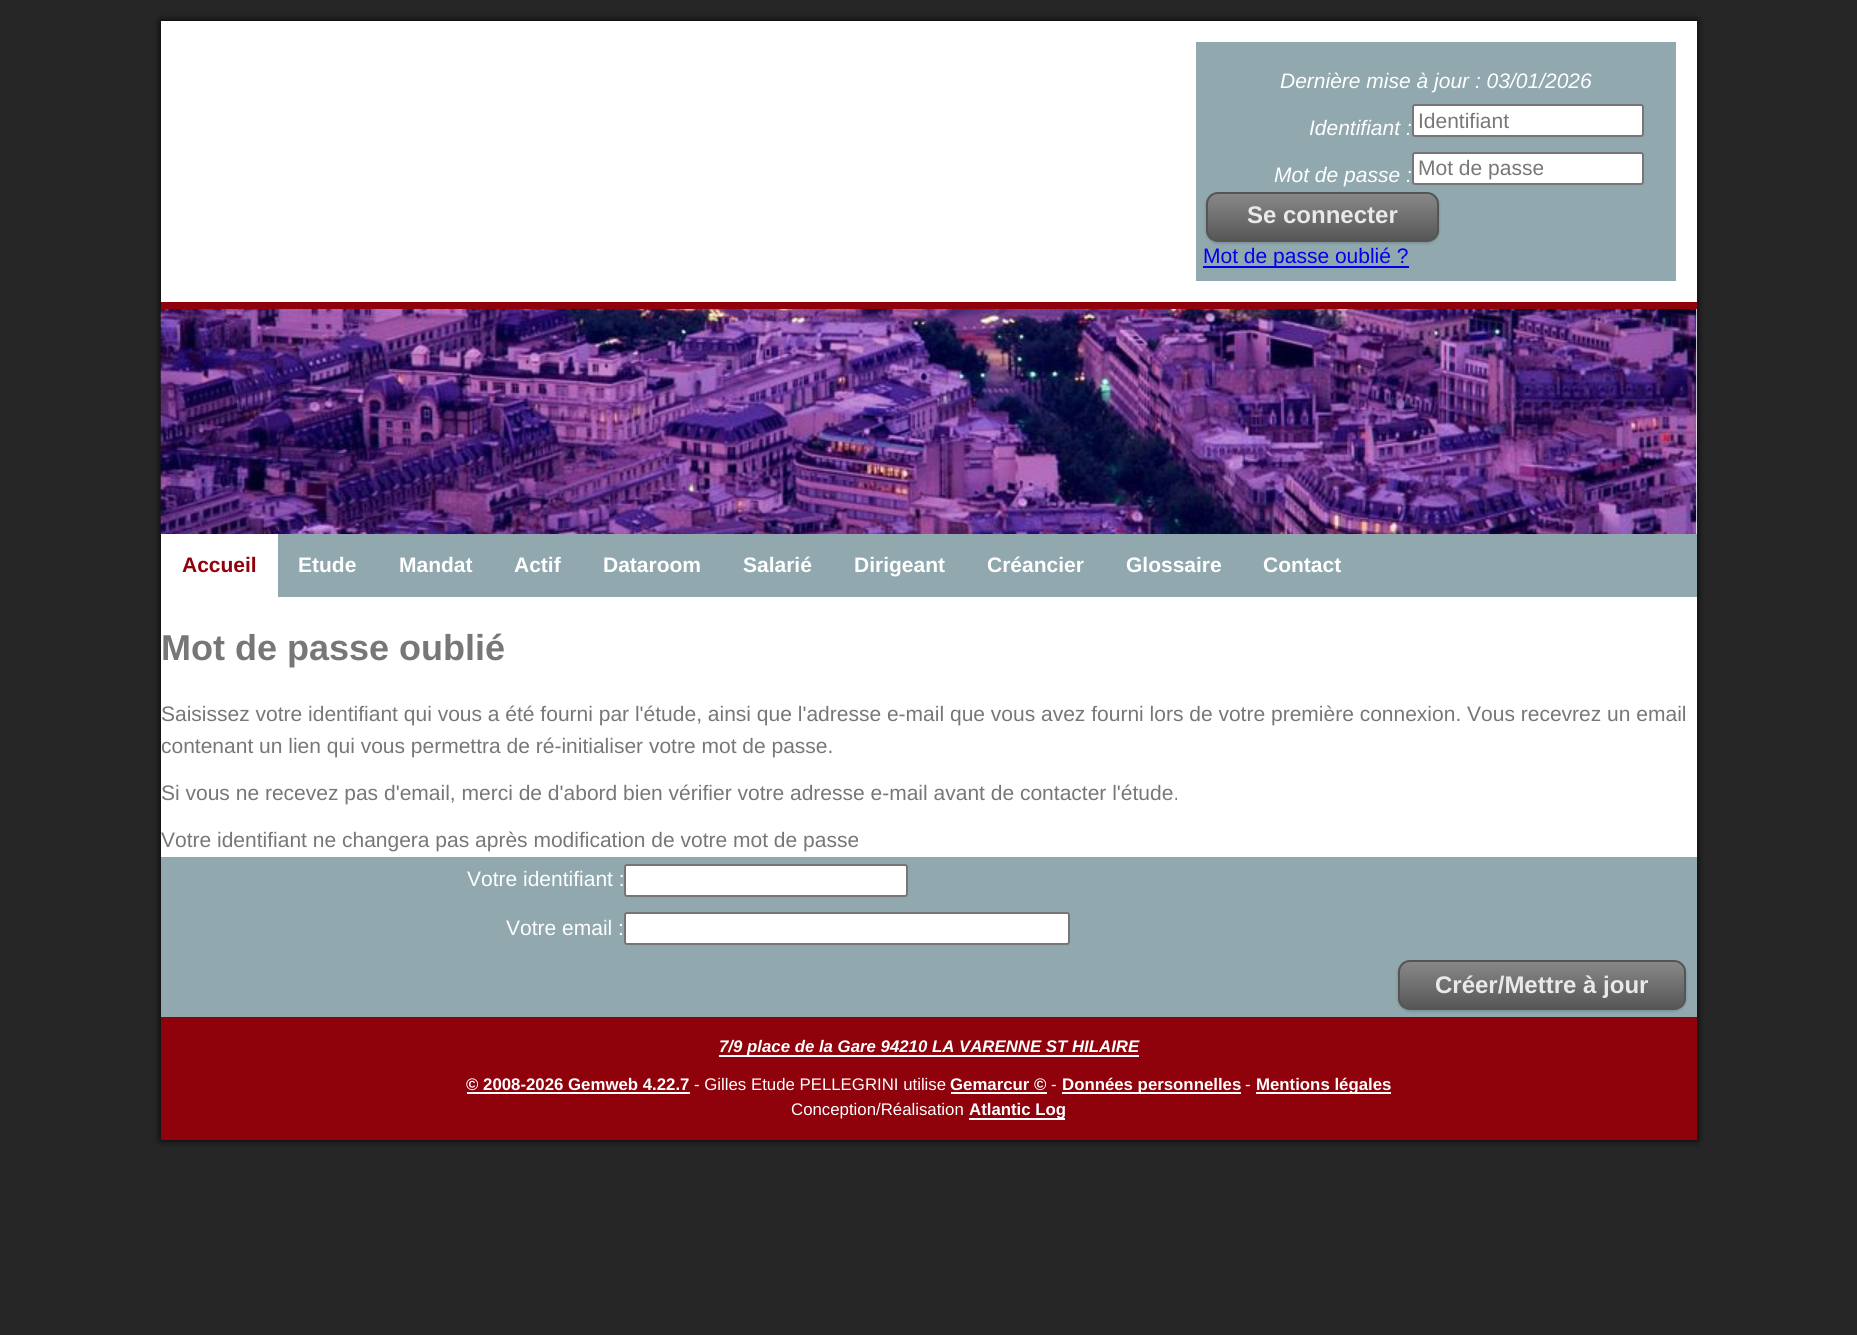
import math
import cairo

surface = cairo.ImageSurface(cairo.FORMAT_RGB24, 1857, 1335)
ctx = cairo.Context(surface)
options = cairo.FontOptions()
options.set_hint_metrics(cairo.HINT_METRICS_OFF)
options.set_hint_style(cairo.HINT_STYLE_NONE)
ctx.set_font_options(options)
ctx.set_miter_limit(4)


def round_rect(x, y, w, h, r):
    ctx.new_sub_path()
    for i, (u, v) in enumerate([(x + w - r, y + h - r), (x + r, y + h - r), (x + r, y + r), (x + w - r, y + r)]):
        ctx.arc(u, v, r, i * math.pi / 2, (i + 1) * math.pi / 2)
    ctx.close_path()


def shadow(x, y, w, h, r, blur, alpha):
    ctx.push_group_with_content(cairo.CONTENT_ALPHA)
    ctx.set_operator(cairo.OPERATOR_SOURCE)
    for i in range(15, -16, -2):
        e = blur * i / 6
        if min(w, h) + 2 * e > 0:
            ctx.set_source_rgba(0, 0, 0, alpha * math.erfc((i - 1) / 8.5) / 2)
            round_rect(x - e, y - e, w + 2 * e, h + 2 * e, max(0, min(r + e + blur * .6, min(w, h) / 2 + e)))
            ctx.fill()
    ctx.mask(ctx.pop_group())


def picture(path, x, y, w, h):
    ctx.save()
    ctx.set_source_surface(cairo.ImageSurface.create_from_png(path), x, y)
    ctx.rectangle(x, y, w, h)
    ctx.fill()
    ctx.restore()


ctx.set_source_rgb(0.149, 0.149, 0.149)
ctx.paint()
ctx.set_source_rgb(0, 0, 0)
shadow(161, 21, 1536, 1119, 0, 4, 1)
ctx.set_source_rgb(1, 1, 1)
ctx.rectangle(161, 21, 1536, 836)
ctx.fill()
ctx.set_source_rgb(0.561, 0.004, 0.043)
ctx.rectangle(161, 302, 1536, 7)
ctx.fill()
ctx.set_source_rgb(0.569, 0.659, 0.682)
ctx.rectangle(1196, 42, 480, 239)
ctx.fill()
ctx.select_font_face("Liberation Sans", cairo.FONT_SLANT_ITALIC)
ctx.set_font_size(21)
ctx.set_source_rgb(1, 1, 1)
ctx.move_to(1280, 88)
ctx.show_text("Dernière mise à jour : 03/01/2026")
ctx.move_to(1309, 135)
ctx.show_text("Identifiant :")
round_rect(1413, 105, 230, 31, 2)
ctx.fill_preserve()
ctx.set_source_rgb(0.463, 0.463, 0.463)
ctx.stroke()
ctx.select_font_face("Liberation Sans")
ctx.set_source_rgb(0.467, 0.467, 0.467)
ctx.move_to(1418, 128)
ctx.show_text("Identifiant")
ctx.select_font_face("Liberation Sans", cairo.FONT_SLANT_ITALIC)
ctx.set_source_rgb(1, 1, 1)
ctx.move_to(1274, 182)
ctx.show_text("Mot de passe :")
round_rect(1413, 153, 230, 31, 2)
ctx.fill_preserve()
ctx.set_source_rgb(0.463, 0.463, 0.463)
ctx.stroke()
ctx.select_font_face("Liberation Sans")
ctx.set_source_rgb(0.467, 0.467, 0.467)
ctx.move_to(1418, 175)
ctx.show_text("Mot de passe")
ctx.set_source_rgb(0, 0, 0)
shadow(1206, 194, 233, 49, 12, 1.5, 0.2)
ctx.save()
round_rect(1206, 192, 233, 50, 12)
ctx.clip()
gradient = cairo.LinearGradient(1208, 194, 1208, 240)
gradient.add_color_stop_rgba(0, 0.533, 0.533, 0.533, 1)
gradient.add_color_stop_rgba(1, 0.341, 0.341, 0.341, 1)
ctx.set_source(gradient)
ctx.rectangle(1206, 194, 233, 46)
ctx.fill()
ctx.restore()
round_rect(1207, 193, 231, 48, 11)
ctx.set_source_rgb(0.333, 0.333, 0.333)
ctx.stroke()
ctx.select_font_face("Liberation Sans", cairo.FONT_SLANT_NORMAL, cairo.FONT_WEIGHT_BOLD)
ctx.set_font_size(24)
ctx.set_source_rgb(0.914, 0.914, 0.914)
ctx.move_to(1247, 223)
ctx.show_text("Se connecter")
ctx.set_source_rgb(0, 0, 0.933)
ctx.rectangle(1203, 266, 206, 2)
ctx.fill()
ctx.select_font_face("Liberation Sans")
ctx.set_font_size(21)
ctx.move_to(1203, 263)
ctx.show_text("Mot de passe oublié ?")
picture("img1.png", 160, 309, 1537, 225)
ctx.set_source_rgb(0.569, 0.659, 0.682)
ctx.rectangle(278, 534, 1419, 63)
ctx.fill()
ctx.select_font_face("Liberation Sans", cairo.FONT_SLANT_NORMAL, cairo.FONT_WEIGHT_BOLD)
ctx.set_source_rgb(0.561, 0.004, 0.043)
ctx.move_to(182, 572)
ctx.show_text("Accueil")
ctx.set_source_rgb(1, 1, 1)
ctx.move_to(298, 572)
ctx.show_text("Etude")
ctx.move_to(399, 572)
ctx.show_text("Mandat")
ctx.move_to(514, 572)
ctx.show_text("Actif")
ctx.move_to(603, 572)
ctx.show_text("Dataroom")
ctx.move_to(743, 572)
ctx.show_text("Salarié")
ctx.move_to(854, 572)
ctx.show_text("Dirigeant")
ctx.move_to(987, 572)
ctx.show_text("Créancier")
ctx.move_to(1126, 572)
ctx.show_text("Glossaire")
ctx.move_to(1263, 572)
ctx.show_text("Contact")
ctx.set_font_size(36)
ctx.set_source_rgb(0.467, 0.467, 0.467)
ctx.move_to(161, 660)
ctx.show_text("Mot de passe oublié")
ctx.select_font_face("Liberation Sans")
ctx.set_font_size(21)
ctx.move_to(161, 721)
ctx.show_text("Saisissez votre identifiant qui vous a été fourni par l'étude, ainsi que l'adresse e-mail que vous avez fourni lors de votre première connexion. Vous recevrez un email")
ctx.move_to(161, 753)
ctx.show_text("contenant un lien qui vous permettra de ré-initialiser votre mot de passe.")
ctx.move_to(161, 800)
ctx.show_text("Si vous ne recevez pas d'email, merci de d'abord bien vérifier votre adresse e-mail avant de contacter l'étude.")
ctx.move_to(161, 847)
ctx.show_text("Votre identifiant ne changera pas après modification de votre mot de passe")
ctx.set_source_rgb(0.569, 0.659, 0.682)
ctx.rectangle(161, 857, 1536, 160)
ctx.fill()
ctx.set_source_rgb(1, 1, 1)
ctx.move_to(467, 886)
ctx.show_text("Votre identifiant :")
round_rect(625, 865, 282, 31, 2)
ctx.fill_preserve()
ctx.set_source_rgb(0.463, 0.463, 0.463)
ctx.stroke()
ctx.set_source_rgb(1, 1, 1)
ctx.move_to(506, 935)
ctx.show_text("Votre email :")
round_rect(625, 913, 444, 31, 2)
ctx.fill_preserve()
ctx.set_source_rgb(0.463, 0.463, 0.463)
ctx.stroke()
ctx.set_source_rgb(0, 0, 0)
shadow(1398, 962, 288, 49, 12, 1.5, 0.2)
ctx.save()
round_rect(1398, 960, 288, 50, 12)
ctx.clip()
gradient = cairo.LinearGradient(1400, 962, 1400, 1008)
gradient.add_color_stop_rgba(0, 0.533, 0.533, 0.533, 1)
gradient.add_color_stop_rgba(1, 0.341, 0.341, 0.341, 1)
ctx.set_source(gradient)
ctx.rectangle(1398, 962, 288, 46)
ctx.fill()
ctx.restore()
round_rect(1399, 961, 286, 48, 11)
ctx.set_source_rgb(0.333, 0.333, 0.333)
ctx.stroke()
ctx.select_font_face("Liberation Sans", cairo.FONT_SLANT_NORMAL, cairo.FONT_WEIGHT_BOLD)
ctx.set_font_size(24)
ctx.set_source_rgb(0.914, 0.914, 0.914)
ctx.move_to(1435, 993)
ctx.show_text("Créer/Mettre à jour")
ctx.set_source_rgb(0.561, 0.004, 0.043)
ctx.rectangle(161, 1017, 1536, 123)
ctx.fill()
ctx.set_source_rgb(1, 1, 1)
ctx.rectangle(719, 1055, 420, 2)
ctx.fill()
ctx.select_font_face("Liberation Sans", cairo.FONT_SLANT_ITALIC, cairo.FONT_WEIGHT_BOLD)
ctx.set_font_size(16.8)
ctx.move_to(719, 1052)
ctx.show_text("7/9 place de la Gare 94210 LA VARENNE ST HILAIRE")
ctx.select_font_face("Liberation Sans", cairo.FONT_SLANT_NORMAL, cairo.FONT_WEIGHT_BOLD)
ctx.move_to(466, 1090)
ctx.show_text("© 2008-2026 Gemweb 4.22.7")
ctx.rectangle(467, 1092, 223, 2)
ctx.fill()
ctx.select_font_face("Liberation Sans")
ctx.move_to(694, 1090)
ctx.show_text("- Gilles Etude PELLEGRINI utilise")
ctx.select_font_face("Liberation Sans", cairo.FONT_SLANT_NORMAL, cairo.FONT_WEIGHT_BOLD)
ctx.move_to(950, 1090)
ctx.show_text("Gemarcur ©")
ctx.rectangle(951, 1092, 96, 2)
ctx.fill()
ctx.select_font_face("Liberation Sans")
ctx.move_to(1051, 1090)
ctx.show_text("-")
ctx.rectangle(1062, 1092, 179, 2)
ctx.fill()
ctx.select_font_face("Liberation Sans", cairo.FONT_SLANT_NORMAL, cairo.FONT_WEIGHT_BOLD)
ctx.move_to(1062, 1090)
ctx.show_text("Données personnelles")
ctx.select_font_face("Liberation Sans")
ctx.move_to(1245, 1090)
ctx.show_text("-")
ctx.rectangle(1256, 1092, 135, 2)
ctx.fill()
ctx.select_font_face("Liberation Sans", cairo.FONT_SLANT_NORMAL, cairo.FONT_WEIGHT_BOLD)
ctx.move_to(1256, 1090)
ctx.show_text("Mentions légales")
ctx.select_font_face("Liberation Sans")
ctx.move_to(791, 1115)
ctx.show_text("Conception/Réalisation")
ctx.rectangle(969, 1118, 96, 2)
ctx.fill()
ctx.select_font_face("Liberation Sans", cairo.FONT_SLANT_NORMAL, cairo.FONT_WEIGHT_BOLD)
ctx.move_to(969, 1115)
ctx.show_text("Atlantic Log")
surface.write_to_png("page.png")
